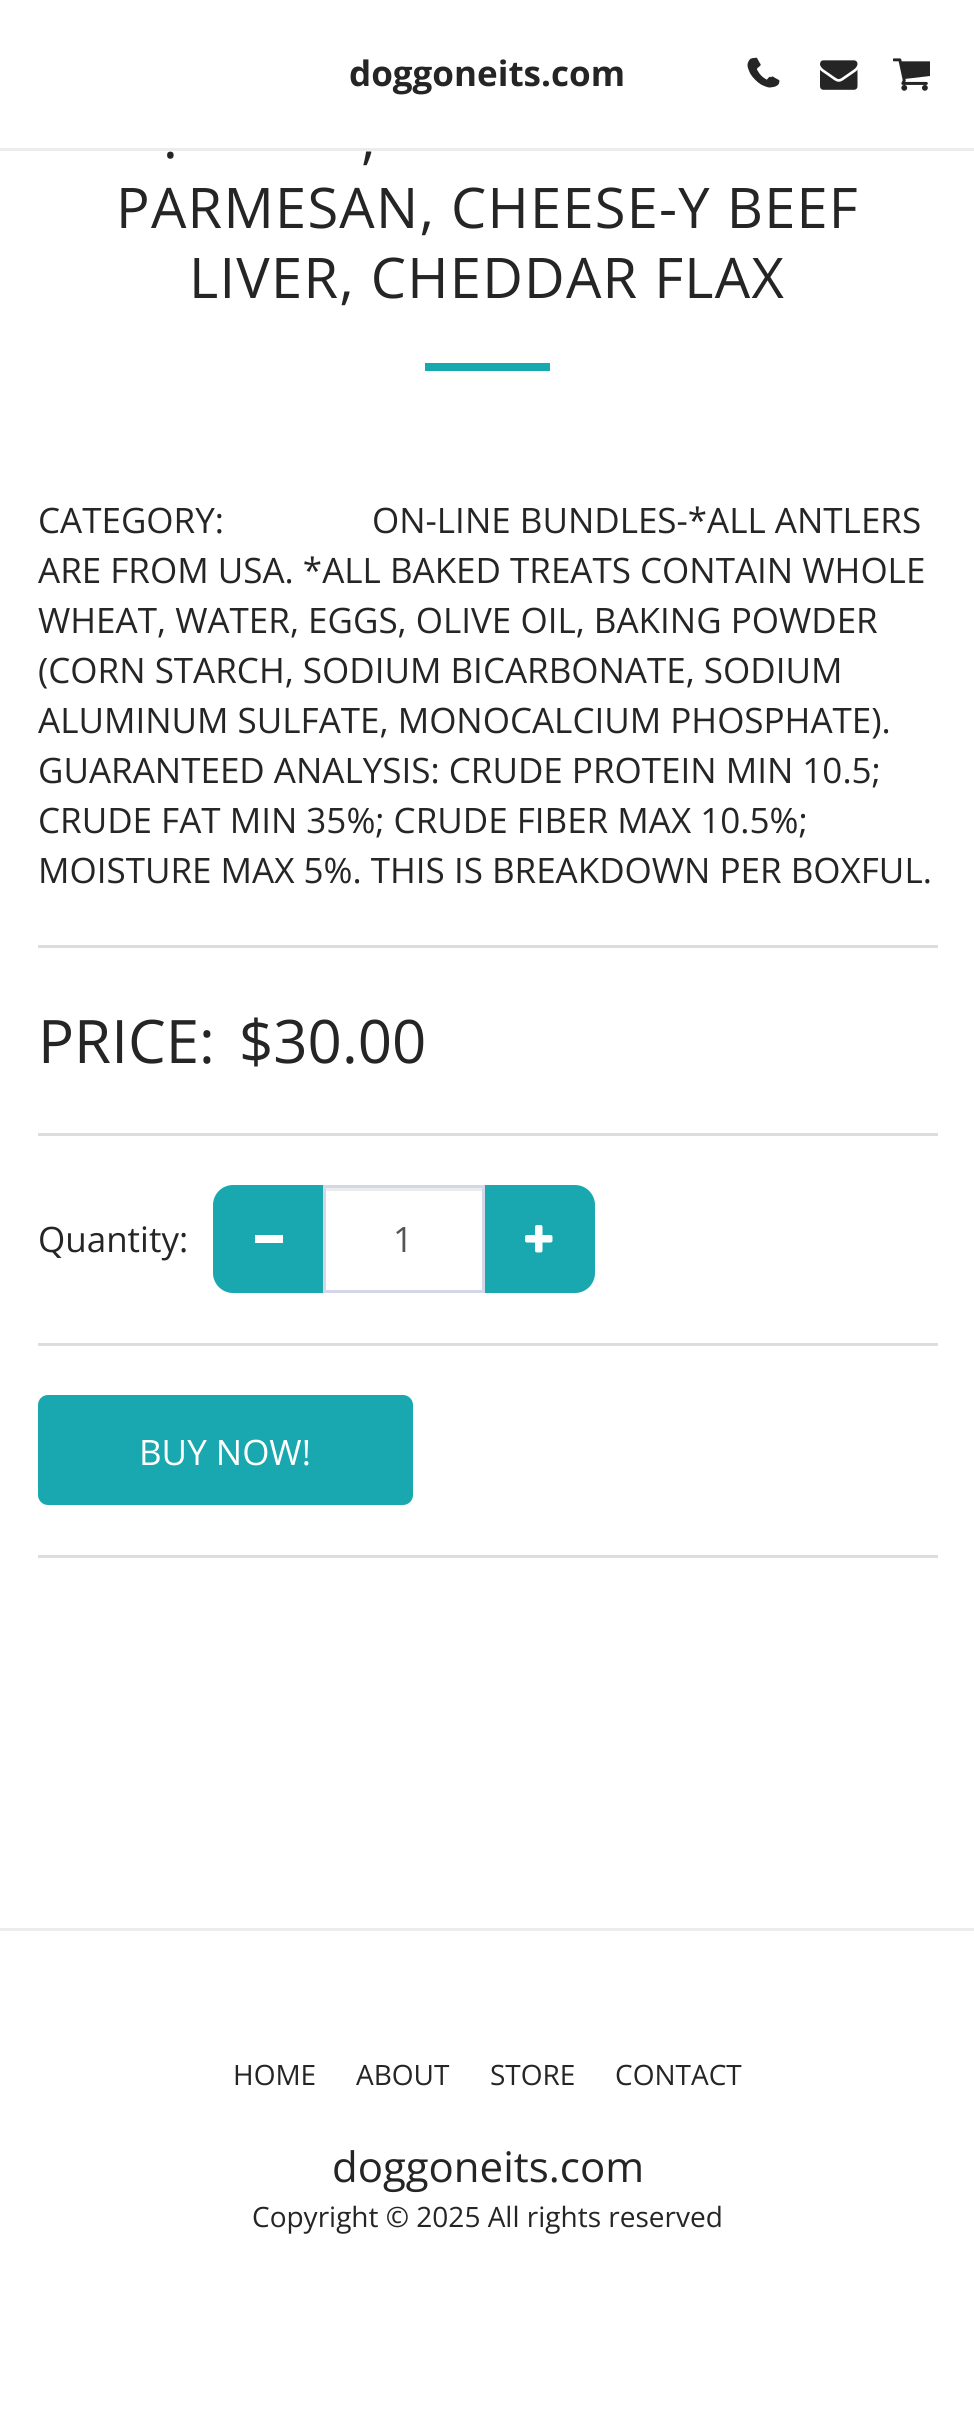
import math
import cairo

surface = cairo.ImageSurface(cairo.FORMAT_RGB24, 974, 2431)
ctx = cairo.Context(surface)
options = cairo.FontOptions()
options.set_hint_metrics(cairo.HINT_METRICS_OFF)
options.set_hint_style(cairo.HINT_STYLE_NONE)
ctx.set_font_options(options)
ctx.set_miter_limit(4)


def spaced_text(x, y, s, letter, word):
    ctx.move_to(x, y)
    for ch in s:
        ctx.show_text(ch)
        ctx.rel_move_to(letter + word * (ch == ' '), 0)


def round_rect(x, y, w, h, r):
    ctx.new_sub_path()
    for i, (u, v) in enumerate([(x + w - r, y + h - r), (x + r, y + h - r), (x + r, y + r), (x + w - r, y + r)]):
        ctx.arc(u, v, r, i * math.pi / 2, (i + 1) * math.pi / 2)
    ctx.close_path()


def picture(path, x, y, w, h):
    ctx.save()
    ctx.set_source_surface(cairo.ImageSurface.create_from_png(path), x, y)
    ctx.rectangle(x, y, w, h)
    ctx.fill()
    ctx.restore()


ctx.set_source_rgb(1, 1, 1)
ctx.paint()
ctx.set_source_rgb(0.922, 0.922, 0.922)
ctx.rectangle(0, 148, 974, 3)
ctx.fill()
ctx.select_font_face("Open Sans", cairo.FONT_SLANT_NORMAL, cairo.FONT_WEIGHT_BOLD)
ctx.set_font_size(35)
ctx.set_source_rgb(0.145, 0.145, 0.145)
ctx.move_to(349, 86)
ctx.show_text("doggoneits.com")
picture("img1.png", 752, 57, 28, 31)
picture("img2.png", 747, 58, 27, 30)
picture("img3.png", 820, 60, 38, 30)
picture("img4.png", 893, 58, 37, 33)
ctx.select_font_face("Open Sans")
ctx.set_font_size(56)
spaced_text(163, 158, ".", 1.25, 0)
spaced_text(361, 158, ",", 1.25, 0)
spaced_text(116, 228, "PARMESAN, CHEESE-Y BEEF", 1.25, 0)
spaced_text(189, 298, "LIVER, CHEDDAR FLAX", 1.25, 0)
ctx.set_source_rgb(0.098, 0.659, 0.69)
ctx.rectangle(425, 363, 125, 8)
ctx.fill()
ctx.set_font_size(35)
ctx.set_source_rgb(0.145, 0.145, 0.145)
ctx.move_to(38, 533)
ctx.show_text("CATEGORY:")
ctx.move_to(372, 533)
ctx.show_text("ON-LINE BUNDLES-*ALL ANTLERS")
ctx.move_to(38, 583)
ctx.show_text("ARE FROM USA. *ALL BAKED TREATS CONTAIN WHOLE")
ctx.move_to(38, 633)
ctx.show_text("WHEAT, WATER, EGGS, OLIVE OIL, BAKING POWDER")
ctx.move_to(38, 683)
ctx.show_text("(CORN STARCH, SODIUM BICARBONATE, SODIUM")
ctx.move_to(38, 733)
ctx.show_text("ALUMINUM SULFATE, MONOCALCIUM PHOSPHATE).")
ctx.move_to(38, 783)
ctx.show_text("GUARANTEED ANALYSIS: CRUDE PROTEIN MIN 10.5;")
ctx.move_to(38, 833)
ctx.show_text("CRUDE FAT MIN 35%; CRUDE FIBER MAX 10.5%;")
ctx.move_to(38, 883)
ctx.show_text("MOISTURE MAX 5%. THIS IS BREAKDOWN PER BOXFUL.")
ctx.set_source_rgb(0.867, 0.867, 0.867)
ctx.rectangle(38, 945, 900, 3)
ctx.fill()
ctx.set_font_size(60)
ctx.set_source_rgb(0.145, 0.145, 0.145)
ctx.move_to(38, 1063)
ctx.show_text("PRICE:")
ctx.move_to(239, 1063)
ctx.show_text("$30.00")
ctx.set_source_rgb(0.867, 0.867, 0.867)
ctx.rectangle(38, 1133, 900, 3)
ctx.fill()
ctx.set_font_size(35)
ctx.set_source_rgb(0.145, 0.145, 0.145)
ctx.move_to(38, 1252)
ctx.show_text("Quantity:")
ctx.set_source_rgb(0.098, 0.659, 0.69)
ctx.new_path()
ctx.move_to(233, 1185)
ctx.line_to(325, 1185)
ctx.line_to(325, 1293)
ctx.line_to(233, 1293)
ctx.curve_to(222, 1293, 213, 1284, 213, 1273)
ctx.line_to(213, 1205)
ctx.curve_to(213, 1194, 222, 1185, 233, 1185)
ctx.close_path()
ctx.fill()
ctx.set_source_rgb(1, 1, 1)
ctx.rectangle(255, 1235, 28, 8)
ctx.fill()
ctx.set_source_rgb(0.925, 0.925, 0.925)
ctx.rectangle(325, 1188, 158, 3)
ctx.fill()
ctx.set_source_rgb(0.098, 0.659, 0.69)
ctx.new_path()
ctx.move_to(483, 1185)
ctx.line_to(575, 1185)
ctx.curve_to(586, 1185, 595, 1194, 595, 1205)
ctx.line_to(595, 1273)
ctx.curve_to(595, 1284, 586, 1293, 575, 1293)
ctx.line_to(483, 1293)
ctx.close_path()
ctx.fill()
ctx.rectangle(324.5, 1186.5, 159, 105)
ctx.set_source_rgb(0.831, 0.843, 0.898)
ctx.set_line_width(3)
ctx.stroke()
ctx.set_source_rgb(0.333, 0.333, 0.333)
ctx.move_to(393, 1252)
ctx.show_text("1")
picture("img5.png", 525, 1225, 28, 28)
ctx.set_source_rgb(0.867, 0.867, 0.867)
ctx.rectangle(38, 1343, 900, 3)
ctx.fill()
ctx.set_source_rgb(0.098, 0.659, 0.69)
round_rect(39.5, 1396.5, 372, 107, 8.5)
ctx.fill_preserve()
ctx.stroke()
ctx.set_source_rgb(1, 1, 1)
ctx.move_to(139, 1465)
ctx.show_text("BUY NOW!")
ctx.set_source_rgb(0.867, 0.867, 0.867)
ctx.rectangle(38, 1555, 900, 3)
ctx.fill()
ctx.set_source_rgb(0.922, 0.922, 0.922)
ctx.rectangle(0, 1928, 974, 3)
ctx.fill()
ctx.set_font_size(28)
ctx.set_source_rgb(0.145, 0.145, 0.145)
ctx.move_to(233, 2085)
ctx.show_text("HOME")
ctx.move_to(356, 2085)
ctx.show_text("ABOUT")
ctx.move_to(490, 2085)
ctx.show_text("STORE")
ctx.move_to(615, 2085)
ctx.show_text("CONTACT")
ctx.set_font_size(42)
ctx.move_to(332, 2182)
ctx.show_text("doggoneits.com")
ctx.set_font_size(28)
ctx.move_to(252, 2227)
ctx.show_text("Copyright © 2025 All rights reserved")
surface.write_to_png("page.png")
